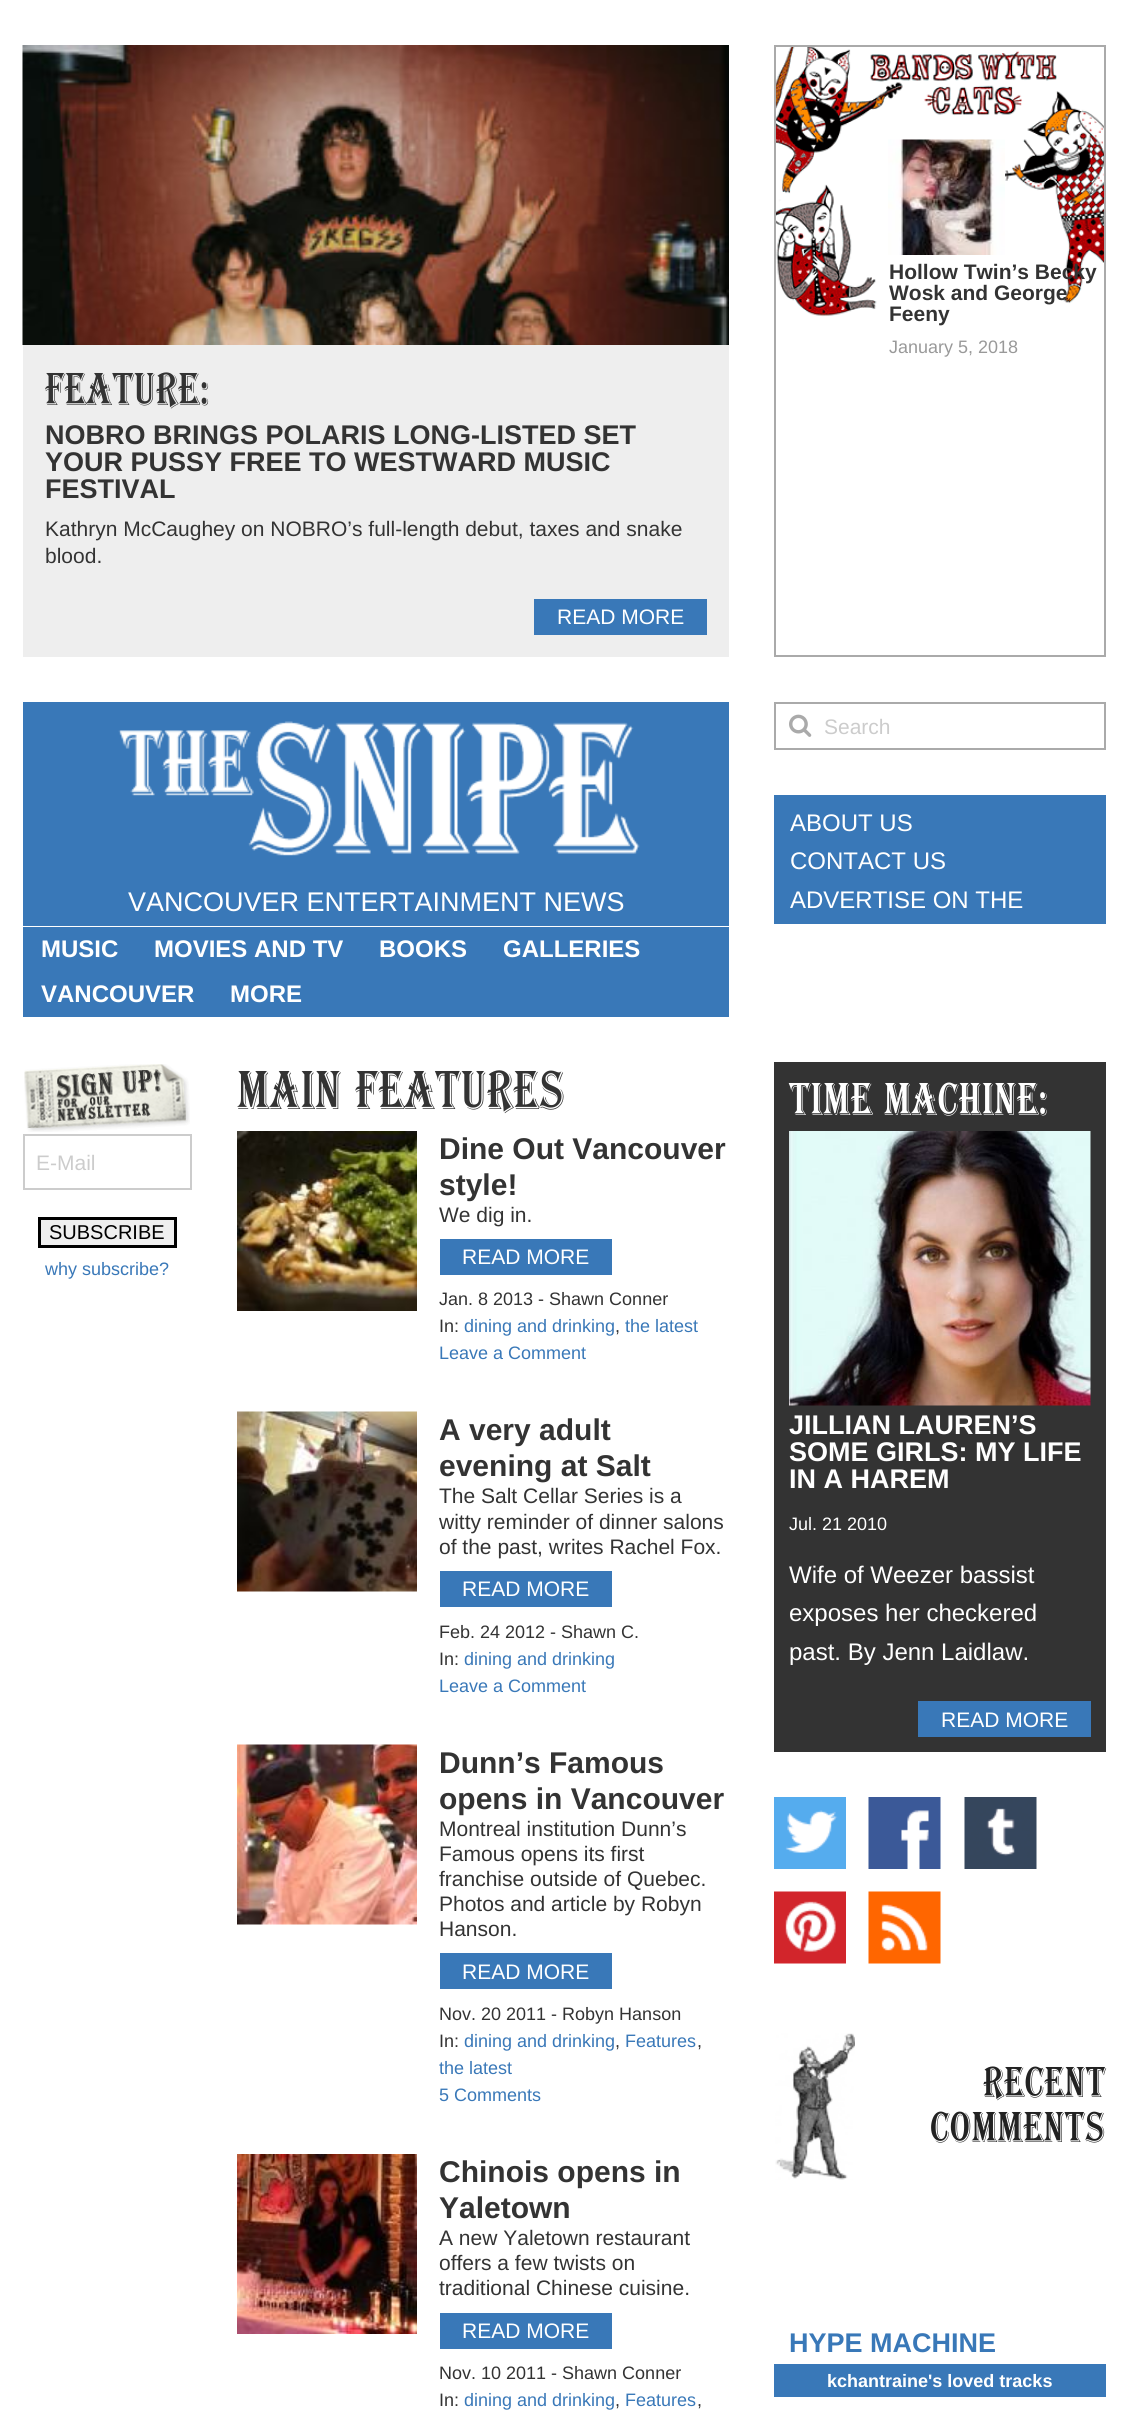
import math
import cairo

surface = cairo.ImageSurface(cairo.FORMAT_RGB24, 1127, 2414)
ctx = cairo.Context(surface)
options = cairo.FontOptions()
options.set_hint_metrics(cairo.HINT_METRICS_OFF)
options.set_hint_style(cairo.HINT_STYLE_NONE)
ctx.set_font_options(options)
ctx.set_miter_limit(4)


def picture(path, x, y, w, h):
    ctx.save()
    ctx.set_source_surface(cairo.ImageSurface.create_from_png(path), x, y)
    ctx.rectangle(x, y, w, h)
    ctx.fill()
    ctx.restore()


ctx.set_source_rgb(1, 1, 1)
ctx.paint()
picture("img1.png", 776, 47, 328, 270)
ctx.rectangle(775, 46, 330, 610)
ctx.set_source_rgb(0.667, 0.667, 0.667)
ctx.stroke()
picture("img2.png", 888, 139, 117, 116)
ctx.select_font_face("Liberation Sans", cairo.FONT_SLANT_NORMAL, cairo.FONT_WEIGHT_BOLD)
ctx.set_font_size(21)
ctx.set_source_rgb(0.2, 0.2, 0.2)
ctx.move_to(889, 279)
ctx.show_text("Hollow Twin’s Becky")
ctx.move_to(889, 300)
ctx.show_text("Wosk and George")
ctx.move_to(889, 321)
ctx.show_text("Feeny")
ctx.select_font_face("Liberation Sans")
ctx.set_font_size(18)
ctx.set_source_rgb(0.6, 0.6, 0.6)
ctx.move_to(889, 353)
ctx.show_text("January 5, 2018")
ctx.set_source_rgb(0.933, 0.933, 0.933)
ctx.rectangle(23, 345, 706, 312)
ctx.fill()
picture("img3.png", 22, 45, 707, 300)
ctx.select_font_face("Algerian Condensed")
ctx.set_font_size(48)
ctx.set_source_rgb(0.2, 0.2, 0.2)
ctx.move_to(45, 405)
ctx.show_text("FEATURE:")
ctx.select_font_face("Liberation Sans", cairo.FONT_SLANT_NORMAL, cairo.FONT_WEIGHT_BOLD)
ctx.set_font_size(27)
ctx.move_to(45, 444)
ctx.show_text("NOBRO BRINGS POLARIS LONG-LISTED SET")
ctx.move_to(45, 471)
ctx.show_text("YOUR PUSSY FREE TO WESTWARD MUSIC")
ctx.move_to(45, 498)
ctx.show_text("FESTIVAL")
ctx.select_font_face("Liberation Sans")
ctx.set_font_size(21)
ctx.move_to(45, 536)
ctx.show_text("Kathryn McCaughey on NOBRO’s full-length debut, taxes and snake")
ctx.move_to(45, 563)
ctx.show_text("blood.")
ctx.set_source_rgb(0.224, 0.471, 0.722)
ctx.rectangle(534, 599, 173, 36)
ctx.fill()
ctx.set_source_rgb(1, 1, 1)
ctx.move_to(557, 624)
ctx.show_text("READ MORE")
ctx.rectangle(775, 703, 330, 46)
ctx.set_source_rgb(0.667, 0.667, 0.667)
ctx.stroke()
picture("img4.png", 789, 714, 23, 23)
ctx.set_source_rgb(0.8, 0.8, 0.8)
ctx.move_to(824, 734)
ctx.show_text("Search")
ctx.set_source_rgb(0.224, 0.471, 0.722)
ctx.rectangle(774, 795, 332, 129)
ctx.fill()
ctx.set_font_size(24)
ctx.set_source_rgb(1, 1, 1)
ctx.move_to(790, 831)
ctx.show_text("ABOUT US")
ctx.move_to(790, 869)
ctx.show_text("CONTACT US")
ctx.move_to(790, 908)
ctx.show_text("ADVERTISE ON THE")
ctx.set_source_rgb(0.224, 0.471, 0.722)
ctx.rectangle(23, 702, 706, 224)
ctx.fill()
picture("img5.png", 118, 721, 522, 135)
ctx.set_font_size(27)
ctx.set_source_rgb(1, 1, 1)
ctx.move_to(128, 911)
ctx.show_text("VANCOUVER ENTERTAINMENT NEWS")
ctx.set_source_rgb(0.224, 0.471, 0.722)
ctx.rectangle(23, 927, 706, 90)
ctx.fill()
ctx.select_font_face("Liberation Sans", cairo.FONT_SLANT_NORMAL, cairo.FONT_WEIGHT_BOLD)
ctx.set_font_size(24)
ctx.set_source_rgb(1, 1, 1)
ctx.move_to(41, 957)
ctx.show_text("MUSIC")
ctx.move_to(154, 957)
ctx.show_text("MOVIES AND TV")
ctx.move_to(379, 957)
ctx.show_text("BOOKS")
ctx.move_to(503, 957)
ctx.show_text("GALLERIES")
ctx.move_to(41, 1002)
ctx.show_text("VANCOUVER")
ctx.move_to(230, 1002)
ctx.show_text("MORE")
picture("img6.png", 24, 1064, 166, 68)
ctx.rectangle(24, 1135, 167, 54)
ctx.set_source_rgb(0.8, 0.8, 0.8)
ctx.stroke()
ctx.select_font_face("Liberation Sans")
ctx.set_font_size(21)
ctx.move_to(36, 1170)
ctx.show_text("E-Mail")
ctx.set_source_rgb(0.937, 0.937, 0.937)
ctx.rectangle(39.5, 1218.5, 136, 28)
ctx.fill_preserve()
ctx.set_source_rgb(0, 0, 0)
ctx.set_line_width(3)
ctx.stroke()
ctx.set_font_size(20)
ctx.move_to(49, 1239)
ctx.show_text("SUBSCRIBE")
ctx.set_font_size(18)
ctx.set_source_rgb(0.224, 0.471, 0.722)
ctx.move_to(45, 1275)
ctx.show_text("why subscribe?")
ctx.select_font_face("Algerian Condensed")
ctx.set_font_size(57)
ctx.set_source_rgb(0.2, 0.2, 0.2)
ctx.move_to(237, 1109)
ctx.show_text("MAIN FEATURES")
picture("img7.png", 237, 1131, 180, 180)
ctx.select_font_face("Liberation Sans", cairo.FONT_SLANT_NORMAL, cairo.FONT_WEIGHT_BOLD)
ctx.set_font_size(30)
ctx.move_to(439, 1159)
ctx.show_text("Dine Out Vancouver")
ctx.move_to(439, 1195)
ctx.show_text("style!")
ctx.select_font_face("Liberation Sans")
ctx.set_font_size(21)
ctx.move_to(439, 1222)
ctx.show_text("We dig in.")
ctx.set_source_rgb(0.224, 0.471, 0.722)
ctx.rectangle(440, 1239, 172, 36)
ctx.fill()
ctx.set_source_rgb(1, 1, 1)
ctx.move_to(462, 1264)
ctx.show_text("READ MORE")
ctx.set_font_size(18)
ctx.set_source_rgb(0.2, 0.2, 0.2)
ctx.move_to(439, 1305)
ctx.show_text("Jan. 8 2013 - Shawn Conner")
ctx.move_to(439, 1332)
ctx.show_text("In:")
ctx.set_source_rgb(0.224, 0.471, 0.722)
ctx.move_to(464, 1332)
ctx.show_text("dining and drinking")
ctx.move_to(625, 1332)
ctx.show_text("the latest")
ctx.set_source_rgb(0.2, 0.2, 0.2)
ctx.move_to(615, 1332)
ctx.show_text(",")
ctx.set_source_rgb(0.224, 0.471, 0.722)
ctx.move_to(439, 1359)
ctx.show_text("Leave a Comment")
picture("img8.png", 237, 1411, 180, 181)
ctx.select_font_face("Liberation Sans", cairo.FONT_SLANT_NORMAL, cairo.FONT_WEIGHT_BOLD)
ctx.set_font_size(30)
ctx.set_source_rgb(0.2, 0.2, 0.2)
ctx.move_to(439, 1440)
ctx.show_text("A very adult")
ctx.move_to(439, 1476)
ctx.show_text("evening at Salt")
ctx.select_font_face("Liberation Sans")
ctx.set_font_size(21)
ctx.move_to(439, 1503)
ctx.show_text("The Salt Cellar Series is a")
ctx.move_to(439, 1529)
ctx.show_text("witty reminder of dinner salons")
ctx.move_to(439, 1554)
ctx.show_text("of the past, writes Rachel Fox.")
ctx.set_source_rgb(0.224, 0.471, 0.722)
ctx.rectangle(440, 1571, 172, 36)
ctx.fill()
ctx.set_source_rgb(1, 1, 1)
ctx.move_to(462, 1596)
ctx.show_text("READ MORE")
ctx.set_font_size(18)
ctx.set_source_rgb(0.2, 0.2, 0.2)
ctx.move_to(439, 1638)
ctx.show_text("Feb. 24 2012 - Shawn C.")
ctx.move_to(439, 1665)
ctx.show_text("In:")
ctx.set_source_rgb(0.224, 0.471, 0.722)
ctx.move_to(464, 1665)
ctx.show_text("dining and drinking")
ctx.move_to(439, 1692)
ctx.show_text("Leave a Comment")
picture("img9.png", 237, 1744, 180, 181)
ctx.select_font_face("Liberation Sans", cairo.FONT_SLANT_NORMAL, cairo.FONT_WEIGHT_BOLD)
ctx.set_font_size(30)
ctx.set_source_rgb(0.2, 0.2, 0.2)
ctx.move_to(439, 1773)
ctx.show_text("Dunn’s Famous")
ctx.move_to(439, 1809)
ctx.show_text("opens in Vancouver")
ctx.select_font_face("Liberation Sans")
ctx.set_font_size(21)
ctx.move_to(439, 1836)
ctx.show_text("Montreal institution Dunn’s")
ctx.move_to(439, 1861)
ctx.show_text("Famous opens its first")
ctx.move_to(439, 1886)
ctx.show_text("franchise outside of Quebec.")
ctx.move_to(439, 1911)
ctx.show_text("Photos and article by Robyn")
ctx.move_to(439, 1936)
ctx.show_text("Hanson.")
ctx.set_source_rgb(0.224, 0.471, 0.722)
ctx.rectangle(440, 1953, 172, 36)
ctx.fill()
ctx.set_source_rgb(1, 1, 1)
ctx.move_to(462, 1979)
ctx.show_text("READ MORE")
ctx.set_font_size(18)
ctx.set_source_rgb(0.2, 0.2, 0.2)
ctx.move_to(439, 2020)
ctx.show_text("Nov. 20 2011 - Robyn Hanson")
ctx.move_to(439, 2047)
ctx.show_text("In:")
ctx.set_source_rgb(0.224, 0.471, 0.722)
ctx.move_to(464, 2047)
ctx.show_text("dining and drinking")
ctx.set_source_rgb(0.2, 0.2, 0.2)
ctx.move_to(615, 2047)
ctx.show_text(",")
ctx.set_source_rgb(0.224, 0.471, 0.722)
ctx.move_to(625, 2047)
ctx.show_text("Features")
ctx.set_source_rgb(0.2, 0.2, 0.2)
ctx.move_to(697, 2047)
ctx.show_text(",")
ctx.set_source_rgb(0.224, 0.471, 0.722)
ctx.move_to(439, 2074)
ctx.show_text("the latest")
ctx.move_to(439, 2101)
ctx.show_text("5 Comments")
picture("img10.png", 237, 2154, 180, 180)
ctx.select_font_face("Liberation Sans", cairo.FONT_SLANT_NORMAL, cairo.FONT_WEIGHT_BOLD)
ctx.set_font_size(30)
ctx.set_source_rgb(0.2, 0.2, 0.2)
ctx.move_to(439, 2182)
ctx.show_text("Chinois opens in")
ctx.move_to(439, 2218)
ctx.show_text("Yaletown")
ctx.select_font_face("Liberation Sans")
ctx.set_font_size(21)
ctx.move_to(439, 2245)
ctx.show_text("A new Yaletown restaurant")
ctx.move_to(439, 2270)
ctx.show_text("offers a few twists on")
ctx.move_to(439, 2295)
ctx.show_text("traditional Chinese cuisine.")
ctx.set_source_rgb(0.224, 0.471, 0.722)
ctx.rectangle(440, 2313, 172, 36)
ctx.fill()
ctx.set_source_rgb(1, 1, 1)
ctx.move_to(462, 2338)
ctx.show_text("READ MORE")
ctx.set_font_size(18)
ctx.set_source_rgb(0.2, 0.2, 0.2)
ctx.move_to(439, 2379)
ctx.show_text("Nov. 10 2011 - Shawn Conner")
ctx.move_to(439, 2406)
ctx.show_text("In:")
ctx.set_source_rgb(0.224, 0.471, 0.722)
ctx.move_to(464, 2406)
ctx.show_text("dining and drinking")
ctx.set_source_rgb(0.2, 0.2, 0.2)
ctx.move_to(615, 2406)
ctx.show_text(",")
ctx.set_source_rgb(0.224, 0.471, 0.722)
ctx.move_to(625, 2406)
ctx.show_text("Features")
ctx.set_source_rgb(0.2, 0.2, 0.2)
ctx.move_to(697, 2406)
ctx.show_text(",")
ctx.rectangle(774, 1062, 332, 690)
ctx.fill()
ctx.select_font_face("Algerian Condensed")
ctx.set_font_size(48)
ctx.set_source_rgb(1, 1, 1)
ctx.move_to(789, 1115)
ctx.show_text("TIME MACHINE:")
picture("img11.png", 789, 1131, 302, 275)
ctx.select_font_face("Liberation Sans", cairo.FONT_SLANT_NORMAL, cairo.FONT_WEIGHT_BOLD)
ctx.set_font_size(27)
ctx.move_to(789, 1434)
ctx.show_text("JILLIAN LAUREN’S")
ctx.move_to(789, 1461)
ctx.show_text("SOME GIRLS: MY LIFE")
ctx.move_to(789, 1488)
ctx.show_text("IN A HAREM")
ctx.select_font_face("Liberation Sans")
ctx.set_font_size(18)
ctx.move_to(789, 1530)
ctx.show_text("Jul. 21 2010")
ctx.set_font_size(24)
ctx.move_to(789, 1583)
ctx.show_text("Wife of Weezer bassist")
ctx.move_to(789, 1621)
ctx.show_text("exposes her checkered")
ctx.move_to(789, 1660)
ctx.show_text("past. By Jenn Laidlaw.")
ctx.set_source_rgb(0.224, 0.471, 0.722)
ctx.rectangle(918, 1701, 173, 36)
ctx.fill()
ctx.set_font_size(21)
ctx.set_source_rgb(1, 1, 1)
ctx.move_to(941, 1727)
ctx.show_text("READ MORE")
picture("img12.png", 774, 1797, 72, 72)
picture("img13.png", 868, 1797, 73, 72)
picture("img14.png", 964, 1797, 73, 72)
picture("img15.png", 774, 1891, 72, 73)
picture("img16.png", 868, 1891, 73, 73)
picture("img17.png", 775, 2033, 80, 147)
ctx.select_font_face("Algerian Condensed")
ctx.set_font_size(45)
ctx.set_source_rgb(0.133, 0.133, 0.133)
ctx.move_to(983, 2097)
ctx.show_text("RECENT")
ctx.move_to(930, 2142)
ctx.show_text("COMMENTS")
ctx.select_font_face("Liberation Sans", cairo.FONT_SLANT_NORMAL, cairo.FONT_WEIGHT_BOLD)
ctx.set_font_size(27)
ctx.set_source_rgb(0.224, 0.471, 0.722)
ctx.move_to(789, 2352)
ctx.show_text("HYPE MACHINE")
ctx.rectangle(774, 2364, 332, 33)
ctx.fill()
ctx.set_font_size(18)
ctx.set_source_rgb(1, 1, 1)
ctx.move_to(827, 2387)
ctx.show_text("kchantraine's loved tracks")
surface.write_to_png("page.png")
